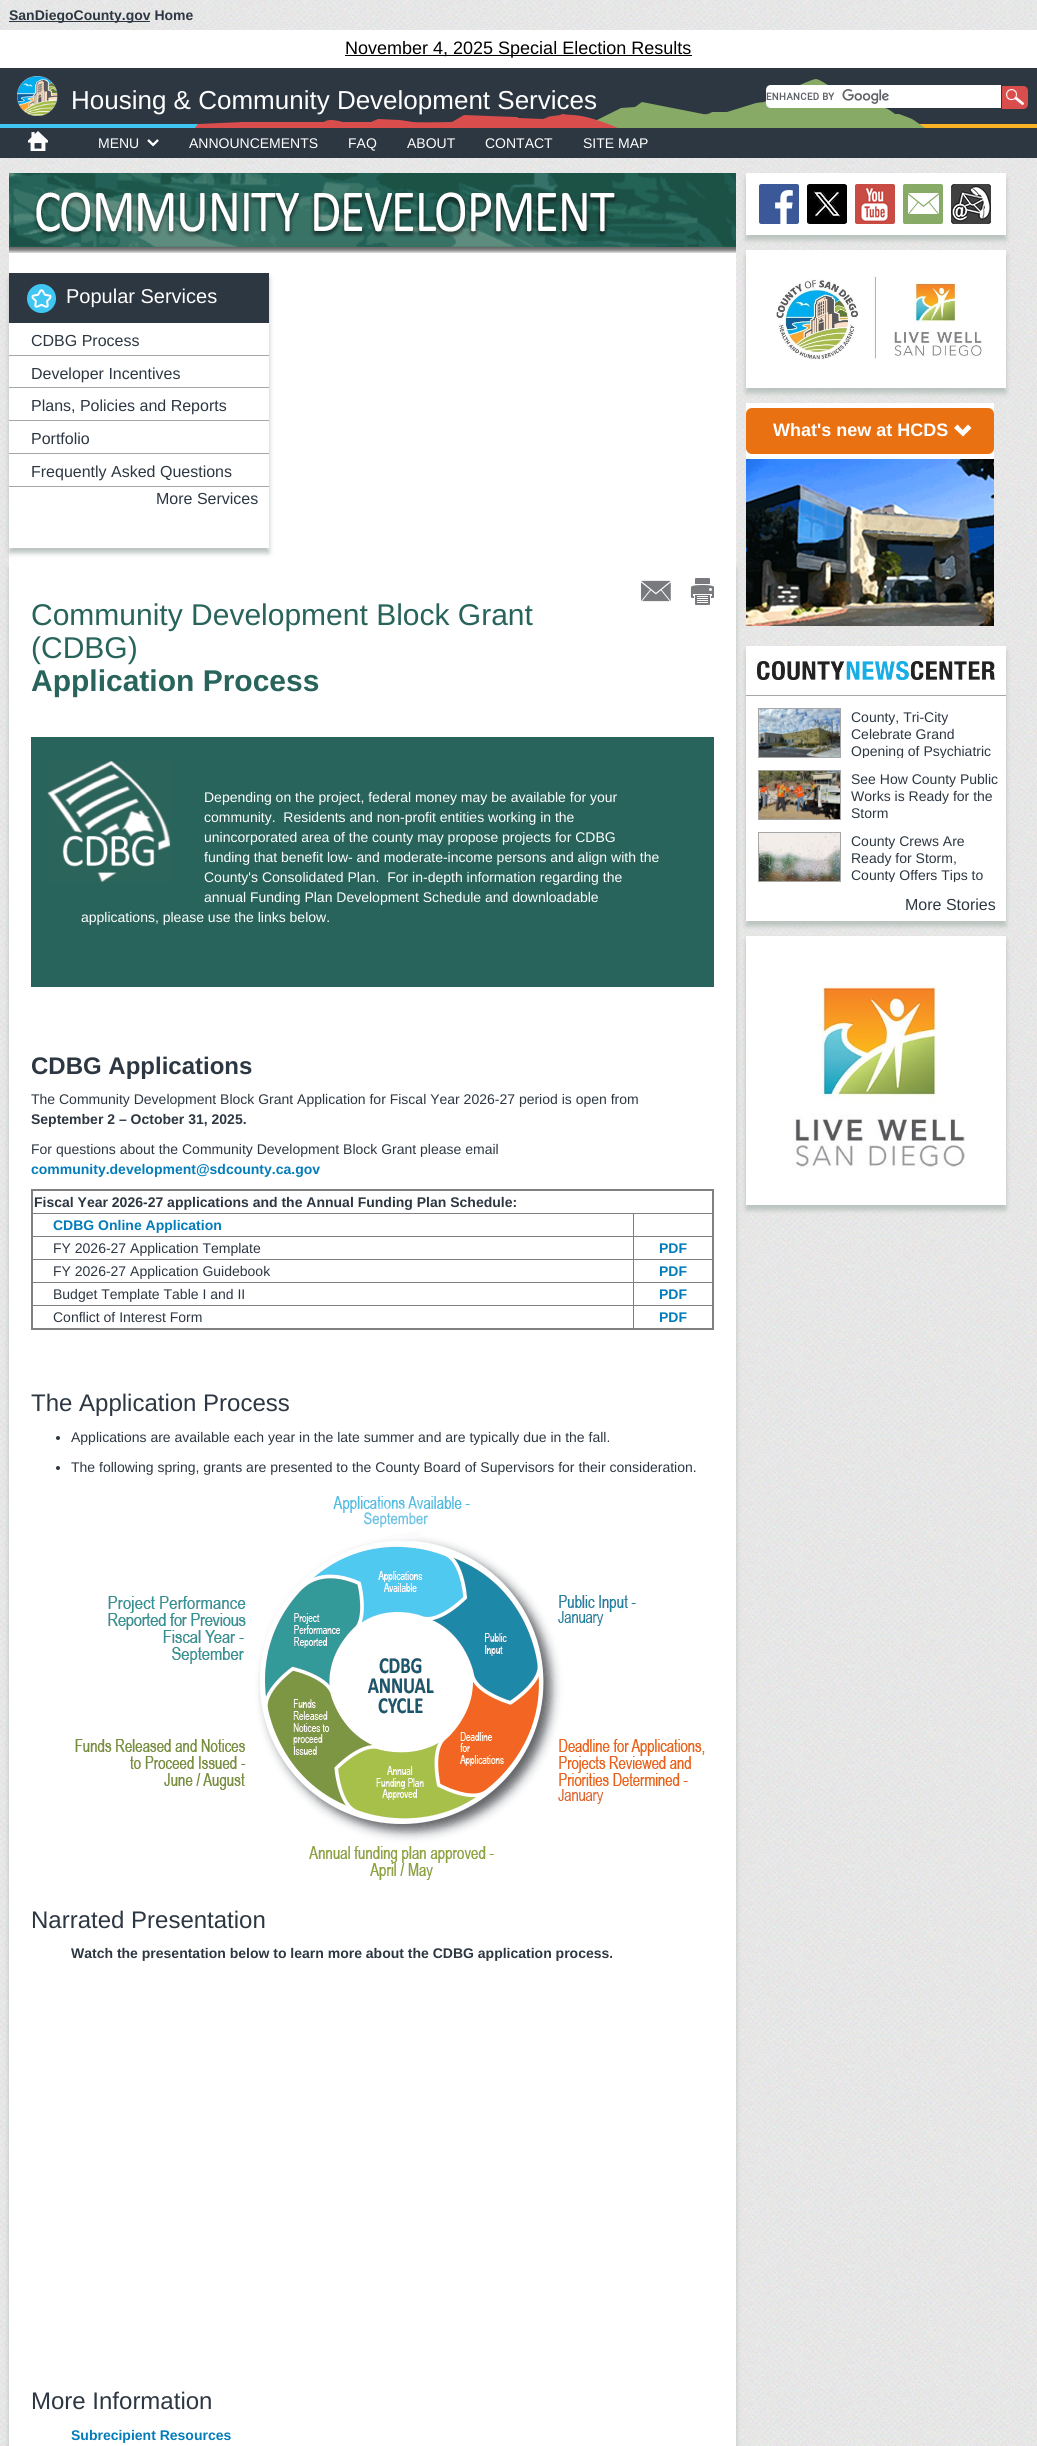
import math
import cairo

surface = cairo.ImageSurface(cairo.FORMAT_RGB24, 1037, 2446)
ctx = cairo.Context(surface)
options = cairo.FontOptions()
options.set_hint_metrics(cairo.HINT_METRICS_OFF)
options.set_hint_style(cairo.HINT_STYLE_NONE)
ctx.set_font_options(options)
ctx.set_miter_limit(4)


def round_rect(x, y, w, h, r):
    ctx.new_sub_path()
    for i, (u, v) in enumerate([(x + w - r, y + h - r), (x + r, y + h - r), (x + r, y + r), (x + w - r, y + r)]):
        ctx.arc(u, v, r, i * math.pi / 2, (i + 1) * math.pi / 2)
    ctx.close_path()


def shadow(x, y, w, h, r, blur, alpha):
    ctx.push_group_with_content(cairo.CONTENT_ALPHA)
    ctx.set_operator(cairo.OPERATOR_SOURCE)
    for i in range(15, -16, -2):
        e = blur * i / 6
        if min(w, h) + 2 * e > 0:
            ctx.set_source_rgba(0, 0, 0, alpha * math.erfc((i - 1) / 8.5) / 2)
            round_rect(x - e, y - e, w + 2 * e, h + 2 * e, max(0, min(r + e + blur * .6, min(w, h) / 2 + e)))
            ctx.fill()
    ctx.mask(ctx.pop_group())


def picture(path, x, y, w, h):
    ctx.save()
    ctx.set_source_surface(cairo.ImageSurface.create_from_png(path), x, y)
    ctx.rectangle(x, y, w, h)
    ctx.fill()
    ctx.restore()


ctx.set_source_rgb(1, 1, 1)
ctx.paint()
picture("img1.png", 0, 0, 1037, 2446)
ctx.set_source_rgb(0.176, 0.216, 0.259)
ctx.rectangle(9, 21, 141, 1)
ctx.fill()
ctx.select_font_face("Liberation Sans", cairo.FONT_SLANT_NORMAL, cairo.FONT_WEIGHT_BOLD)
ctx.set_font_size(14)
ctx.move_to(9, 20)
ctx.show_text("SanDiegoCounty.gov Home")
ctx.rectangle(0, 68, 1037, 56)
ctx.fill()
ctx.set_source_rgb(1, 1, 1)
ctx.rectangle(0, 30, 1037, 38)
ctx.fill()
ctx.set_source_rgb(0, 0, 0)
ctx.rectangle(345, 55, 347, 1)
ctx.fill()
ctx.select_font_face("Liberation Sans")
ctx.set_font_size(18)
ctx.move_to(345, 54)
ctx.show_text("November 4, 2025 Special Election Results")
picture("img2.png", 17, 76, 41, 40)
picture("img3.png", 195, 79, 730, 49)
ctx.set_font_size(26)
ctx.set_source_rgb(1, 1, 1)
ctx.move_to(71, 109)
ctx.show_text("Housing & Community Development Services")
ctx.new_path()
ctx.move_to(771, 85)
ctx.line_to(1001, 85)
ctx.line_to(1001, 108)
ctx.line_to(771, 108)
ctx.curve_to(768, 108, 766, 106, 766, 103)
ctx.line_to(766, 90)
ctx.curve_to(766, 87, 768, 85, 771, 85)
ctx.close_path()
ctx.fill()
picture("img4.png", 766, 89, 123, 15)
ctx.set_source_rgb(0.851, 0.302, 0.298)
ctx.new_path()
ctx.move_to(1002, 86)
ctx.line_to(1023, 86)
ctx.curve_to(1026, 86, 1028, 88, 1028, 91)
ctx.line_to(1028, 104)
ctx.curve_to(1028, 107, 1026, 109, 1023, 109)
ctx.line_to(1002, 109)
ctx.close_path()
ctx.fill()
picture("img5.png", 1006, 89, 18, 16)
ctx.set_source_rgb(0.251, 0.776, 0.949)
ctx.rectangle(0, 124, 195, 4)
ctx.fill()
ctx.set_source_rgb(0.965, 0.702, 0.141)
ctx.rectangle(925, 124, 112, 4)
ctx.fill()
ctx.set_source_rgb(0.176, 0.216, 0.259)
ctx.rectangle(0, 128, 1037, 30)
ctx.fill()
picture("img6.png", 28, 131, 20, 20)
ctx.set_font_size(14)
ctx.set_source_rgb(1, 1, 1)
ctx.move_to(98, 148)
ctx.show_text("MENU")
picture("img7.png", 147, 139, 12, 8)
ctx.move_to(189, 148)
ctx.show_text("ANNOUNCEMENTS")
ctx.move_to(348, 148)
ctx.show_text("FAQ")
ctx.move_to(407, 148)
ctx.show_text("ABOUT")
ctx.move_to(485, 148)
ctx.show_text("CONTACT")
ctx.move_to(583, 148)
ctx.show_text("SITE MAP")
ctx.rectangle(9, 253, 727, 2193)
ctx.fill()
picture("img8.png", 9, 173, 727, 80)
ctx.save()
ctx.set_fill_rule(cairo.FILL_RULE_EVEN_ODD)
ctx.new_path()
ctx.move_to(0, 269)
ctx.line_to(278, 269)
ctx.line_to(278, 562)
ctx.line_to(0, 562)
ctx.close_path()
ctx.move_to(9, 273)
ctx.line_to(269, 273)
ctx.line_to(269, 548)
ctx.line_to(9, 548)
ctx.close_path()
ctx.clip()
ctx.set_source_rgb(0.725, 0.761, 0.741)
shadow(9, 278, 260, 275, 0, 2.5, 1)
ctx.restore()
ctx.set_source_rgb(0.176, 0.216, 0.259)
ctx.rectangle(9, 273, 260, 50)
ctx.fill()
picture("img9.png", 27, 284, 29, 29)
ctx.set_font_size(20)
ctx.set_source_rgb(1, 1, 1)
ctx.move_to(66, 303)
ctx.show_text("Popular Services")
ctx.set_source_rgb(0.655, 0.651, 0.651)
ctx.rectangle(9, 355, 260, 1)
ctx.fill()
ctx.set_font_size(16)
ctx.set_source_rgb(0.176, 0.216, 0.259)
ctx.move_to(31, 346)
ctx.show_text("CDBG Process")
ctx.set_source_rgb(0.655, 0.651, 0.651)
ctx.rectangle(9, 387, 260, 1)
ctx.fill()
ctx.set_source_rgb(0.176, 0.216, 0.259)
ctx.move_to(31, 379)
ctx.show_text("Developer Incentives")
ctx.set_source_rgb(0.655, 0.651, 0.651)
ctx.rectangle(9, 420, 260, 1)
ctx.fill()
ctx.set_source_rgb(0.176, 0.216, 0.259)
ctx.move_to(31, 411)
ctx.show_text("Plans, Policies and Reports")
ctx.set_source_rgb(0.655, 0.651, 0.651)
ctx.rectangle(9, 453, 260, 1)
ctx.fill()
ctx.set_source_rgb(0.176, 0.216, 0.259)
ctx.move_to(31, 444)
ctx.show_text("Portfolio")
ctx.set_source_rgb(0.655, 0.651, 0.651)
ctx.rectangle(9, 486, 260, 1)
ctx.fill()
ctx.set_source_rgb(0.176, 0.216, 0.259)
ctx.move_to(31, 477)
ctx.show_text("Frequently Asked Questions")
ctx.move_to(156, 504)
ctx.show_text("More Services")
ctx.save()
ctx.set_fill_rule(cairo.FILL_RULE_EVEN_ODD)
ctx.new_path()
ctx.move_to(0, 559)
ctx.line_to(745, 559)
ctx.line_to(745, 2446)
ctx.line_to(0, 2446)
ctx.close_path()
ctx.move_to(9, 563)
ctx.line_to(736, 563)
ctx.line_to(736, 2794)
ctx.line_to(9, 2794)
ctx.close_path()
ctx.clip()
ctx.set_source_rgb(0.725, 0.761, 0.741)
shadow(9, 568, 727, 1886, 0, 2.5, 1)
ctx.restore()
picture("img10.png", 641, 580, 30, 22)
picture("img11.png", 690, 578, 24, 27)
ctx.set_font_size(30)
ctx.set_source_rgb(0.157, 0.392, 0.357)
ctx.move_to(31, 625)
ctx.show_text("Community Development Block Grant")
ctx.move_to(31, 658)
ctx.show_text("(CDBG)")
ctx.select_font_face("Liberation Sans", cairo.FONT_SLANT_NORMAL, cairo.FONT_WEIGHT_BOLD)
ctx.move_to(31, 691)
ctx.show_text("Application Process")
ctx.rectangle(31, 737, 683, 250)
ctx.fill()
picture("img12.png", 47, 761, 124, 121)
ctx.select_font_face("Liberation Sans")
ctx.set_font_size(14)
ctx.set_source_rgb(1, 1, 1)
ctx.move_to(204, 802)
ctx.show_text("Depending on the project, federal money may be available for your")
ctx.move_to(204, 822)
ctx.show_text("community.  Residents and non-profit entities working in the")
ctx.move_to(204, 842)
ctx.show_text("unincorporated area of the county may propose projects for CDBG")
ctx.move_to(204, 862)
ctx.show_text("funding that benefit low- and moderate-income persons and align with the")
ctx.move_to(204, 882)
ctx.show_text("County's Consolidated Plan.  For in-depth information regarding the")
ctx.move_to(204, 902)
ctx.show_text("annual Funding Plan Development Schedule and downloadable")
ctx.move_to(81, 922)
ctx.show_text("applications, please use the links below.")
ctx.select_font_face("Liberation Sans", cairo.FONT_SLANT_NORMAL, cairo.FONT_WEIGHT_BOLD)
ctx.set_font_size(24)
ctx.set_source_rgb(0.176, 0.216, 0.259)
ctx.move_to(31, 1074)
ctx.show_text("CDBG Applications")
ctx.select_font_face("Liberation Sans")
ctx.set_font_size(14)
ctx.move_to(31, 1104)
ctx.show_text("The Community Development Block Grant Application for Fiscal Year 2026-27 period is open from")
ctx.select_font_face("Liberation Sans", cairo.FONT_SLANT_NORMAL, cairo.FONT_WEIGHT_BOLD)
ctx.move_to(31, 1124)
ctx.show_text("September 2 – October 31, 2025.")
ctx.select_font_face("Liberation Sans")
ctx.move_to(31, 1154)
ctx.show_text("For questions about the Community Development Block Grant please email")
ctx.select_font_face("Liberation Sans", cairo.FONT_SLANT_NORMAL, cairo.FONT_WEIGHT_BOLD)
ctx.set_source_rgb(0.008, 0.486, 0.733)
ctx.move_to(31, 1174)
ctx.show_text("community.development@sdcounty.ca.gov")
ctx.set_source_rgb(0.502, 0.502, 0.502)
ctx.rectangle(31, 1189, 683, 2)
ctx.fill()
ctx.rectangle(633, 1213, 81, 1)
ctx.fill()
ctx.rectangle(633, 1236, 81, 1)
ctx.fill()
ctx.rectangle(633, 1259, 81, 1)
ctx.fill()
ctx.rectangle(633, 1282, 81, 1)
ctx.fill()
ctx.rectangle(633, 1305, 81, 1)
ctx.fill()
ctx.rectangle(712, 1189, 2, 141)
ctx.fill()
ctx.rectangle(633, 1305, 1, 25)
ctx.fill()
ctx.rectangle(31, 1328, 683, 2)
ctx.fill()
ctx.rectangle(31, 1305, 603, 1)
ctx.fill()
ctx.rectangle(633, 1282, 1, 24)
ctx.fill()
ctx.rectangle(31, 1282, 603, 1)
ctx.fill()
ctx.rectangle(633, 1259, 1, 24)
ctx.fill()
ctx.rectangle(31, 1259, 603, 1)
ctx.fill()
ctx.rectangle(633, 1236, 1, 24)
ctx.fill()
ctx.rectangle(31, 1236, 603, 1)
ctx.fill()
ctx.rectangle(633, 1213, 1, 24)
ctx.fill()
ctx.rectangle(31, 1213, 603, 1)
ctx.fill()
ctx.rectangle(31, 1189, 2, 141)
ctx.fill()
ctx.set_source_rgb(0.176, 0.216, 0.259)
ctx.move_to(34, 1207)
ctx.show_text("Fiscal Year 2026-27 applications and the Annual Funding Plan Schedule:")
ctx.set_source_rgb(0.008, 0.486, 0.733)
ctx.move_to(53, 1230)
ctx.show_text("CDBG Online Application")
ctx.select_font_face("Liberation Sans")
ctx.set_source_rgb(0.176, 0.216, 0.259)
ctx.move_to(53, 1253)
ctx.show_text("FY 2026-27 Application Template")
ctx.select_font_face("Liberation Sans", cairo.FONT_SLANT_NORMAL, cairo.FONT_WEIGHT_BOLD)
ctx.set_source_rgb(0.008, 0.486, 0.733)
ctx.move_to(659, 1253)
ctx.show_text("PDF")
ctx.select_font_face("Liberation Sans")
ctx.set_source_rgb(0.176, 0.216, 0.259)
ctx.move_to(53, 1276)
ctx.show_text("FY 2026-27 Application Guidebook")
ctx.select_font_face("Liberation Sans", cairo.FONT_SLANT_NORMAL, cairo.FONT_WEIGHT_BOLD)
ctx.set_source_rgb(0.008, 0.486, 0.733)
ctx.move_to(659, 1276)
ctx.show_text("PDF")
ctx.select_font_face("Liberation Sans")
ctx.set_source_rgb(0.176, 0.216, 0.259)
ctx.move_to(53, 1299)
ctx.show_text("Budget Template Table I and II")
ctx.select_font_face("Liberation Sans", cairo.FONT_SLANT_NORMAL, cairo.FONT_WEIGHT_BOLD)
ctx.set_source_rgb(0.008, 0.486, 0.733)
ctx.move_to(659, 1299)
ctx.show_text("PDF")
ctx.select_font_face("Liberation Sans")
ctx.set_source_rgb(0.176, 0.216, 0.259)
ctx.move_to(53, 1322)
ctx.show_text("Conflict of Interest Form")
ctx.select_font_face("Liberation Sans", cairo.FONT_SLANT_NORMAL, cairo.FONT_WEIGHT_BOLD)
ctx.set_source_rgb(0.008, 0.486, 0.733)
ctx.move_to(659, 1322)
ctx.show_text("PDF")
ctx.select_font_face("Liberation Sans")
ctx.set_font_size(24)
ctx.set_source_rgb(0.176, 0.216, 0.259)
ctx.move_to(31, 1411)
ctx.show_text("The Application Process")
ctx.new_path()
ctx.arc(58, 1438, 2, 0, 2 * math.pi)
ctx.fill()
ctx.set_font_size(14)
ctx.move_to(71, 1442)
ctx.show_text("Applications are available each year in the late summer and are typically due in the fall.")
ctx.new_path()
ctx.arc(58, 1468, 2, 0, 2 * math.pi)
ctx.fill()
ctx.move_to(71, 1472)
ctx.show_text("The following spring, grants are presented to the County Board of Supervisors for their consideration.")
picture("img13.png", 75, 1496, 630, 384)
ctx.set_font_size(24)
ctx.move_to(31, 1928)
ctx.show_text("Narrated Presentation")
ctx.select_font_face("Liberation Sans", cairo.FONT_SLANT_NORMAL, cairo.FONT_WEIGHT_BOLD)
ctx.set_font_size(14)
ctx.move_to(71, 1958)
ctx.show_text("Watch the presentation below to learn more about the CDBG application process.")
ctx.select_font_face("Liberation Sans")
ctx.set_font_size(24)
ctx.move_to(31, 2409)
ctx.show_text("More Information")
ctx.select_font_face("Liberation Sans", cairo.FONT_SLANT_NORMAL, cairo.FONT_WEIGHT_BOLD)
ctx.set_font_size(14)
ctx.set_source_rgb(0.008, 0.486, 0.733)
ctx.move_to(71, 2440)
ctx.show_text("Subrecipient Resources")
ctx.set_source_rgb(0.725, 0.761, 0.741)
shadow(746, 178, 260, 62, 0, 2.5, 1)
ctx.set_source_rgb(1, 1, 1)
ctx.rectangle(746, 173, 260, 62)
ctx.fill()
picture("img14.png", 759, 184, 40, 40)
picture("img15.png", 807, 184, 40, 40)
picture("img16.png", 855, 184, 40, 40)
picture("img17.png", 903, 184, 40, 40)
picture("img18.png", 951, 184, 40, 40)
ctx.set_source_rgb(0.725, 0.761, 0.741)
shadow(746, 255, 260, 138, 0, 2.5, 1)
ctx.set_source_rgb(1, 1, 1)
ctx.rectangle(746, 250, 260, 138)
ctx.fill()
picture("img19.png", 776, 276, 206, 84)
ctx.rectangle(746, 403, 248, 56)
ctx.fill()
ctx.set_source_rgb(0.914, 0.443, 0.067)
round_rect(746, 408, 248, 46, 6)
ctx.fill()
ctx.set_font_size(18)
ctx.set_source_rgb(1, 1, 1)
ctx.move_to(773, 436)
ctx.show_text("What's new at HCDS")
ctx.new_path()
ctx.move_to(954, 428)
ctx.line_to(963, 436.5)
ctx.line_to(971.5, 428)
ctx.line_to(968, 424.5)
ctx.line_to(962.5, 430)
ctx.line_to(957.5, 424.5)
ctx.close_path()
ctx.fill()
picture("img20.png", 746, 459, 248, 167)
ctx.set_source_rgb(0.725, 0.761, 0.741)
shadow(746, 651, 260, 275, 0, 2.5, 1)
ctx.set_source_rgb(1, 1, 1)
ctx.rectangle(746, 646, 260, 275)
ctx.fill()
ctx.set_source_rgb(0.655, 0.651, 0.651)
ctx.rectangle(746, 695, 260, 1)
ctx.fill()
picture("img21.png", 757, 661, 238, 19)
ctx.rectangle(758.5, 708.5, 82, 49)
ctx.set_line_width(1)
ctx.stroke()
picture("img22.png", 759, 709, 81, 48)
ctx.select_font_face("Liberation Sans")
ctx.set_font_size(14)
ctx.set_source_rgb(0.176, 0.216, 0.259)
ctx.move_to(851, 722)
ctx.show_text("County, Tri-City")
ctx.move_to(851, 739)
ctx.show_text("Celebrate Grand")
ctx.save()
ctx.rectangle(746, 696, 255, 62)
ctx.clip()
ctx.move_to(851, 756)
ctx.show_text("Opening of Psychiatric")
ctx.restore()
ctx.rectangle(758.5, 770.5, 82, 49)
ctx.set_source_rgb(0.655, 0.651, 0.651)
ctx.stroke()
picture("img23.png", 759, 771, 81, 48)
ctx.set_source_rgb(0.176, 0.216, 0.259)
ctx.move_to(851, 784)
ctx.show_text("See How County Public")
ctx.move_to(851, 801)
ctx.show_text("Works is Ready for the")
ctx.move_to(851, 818)
ctx.show_text("Storm")
ctx.rectangle(758.5, 832.5, 82, 49)
ctx.set_source_rgb(0.655, 0.651, 0.651)
ctx.stroke()
picture("img24.png", 759, 833, 81, 48)
ctx.set_source_rgb(0.176, 0.216, 0.259)
ctx.move_to(851, 846)
ctx.show_text("County Crews Are")
ctx.move_to(851, 863)
ctx.show_text("Ready for Storm,")
ctx.save()
ctx.rectangle(746, 820, 255, 62)
ctx.clip()
ctx.move_to(851, 880)
ctx.show_text("County Offers Tips to")
ctx.restore()
ctx.set_font_size(16)
ctx.move_to(905, 910)
ctx.show_text("More Stories")
ctx.set_source_rgb(0.725, 0.761, 0.741)
shadow(746, 941, 260, 269, 0, 2.5, 1)
ctx.set_source_rgb(1, 1, 1)
ctx.rectangle(746, 936, 260, 269)
ctx.fill()
picture("img25.png", 792, 982, 173, 186)
surface.write_to_png("page.png")
